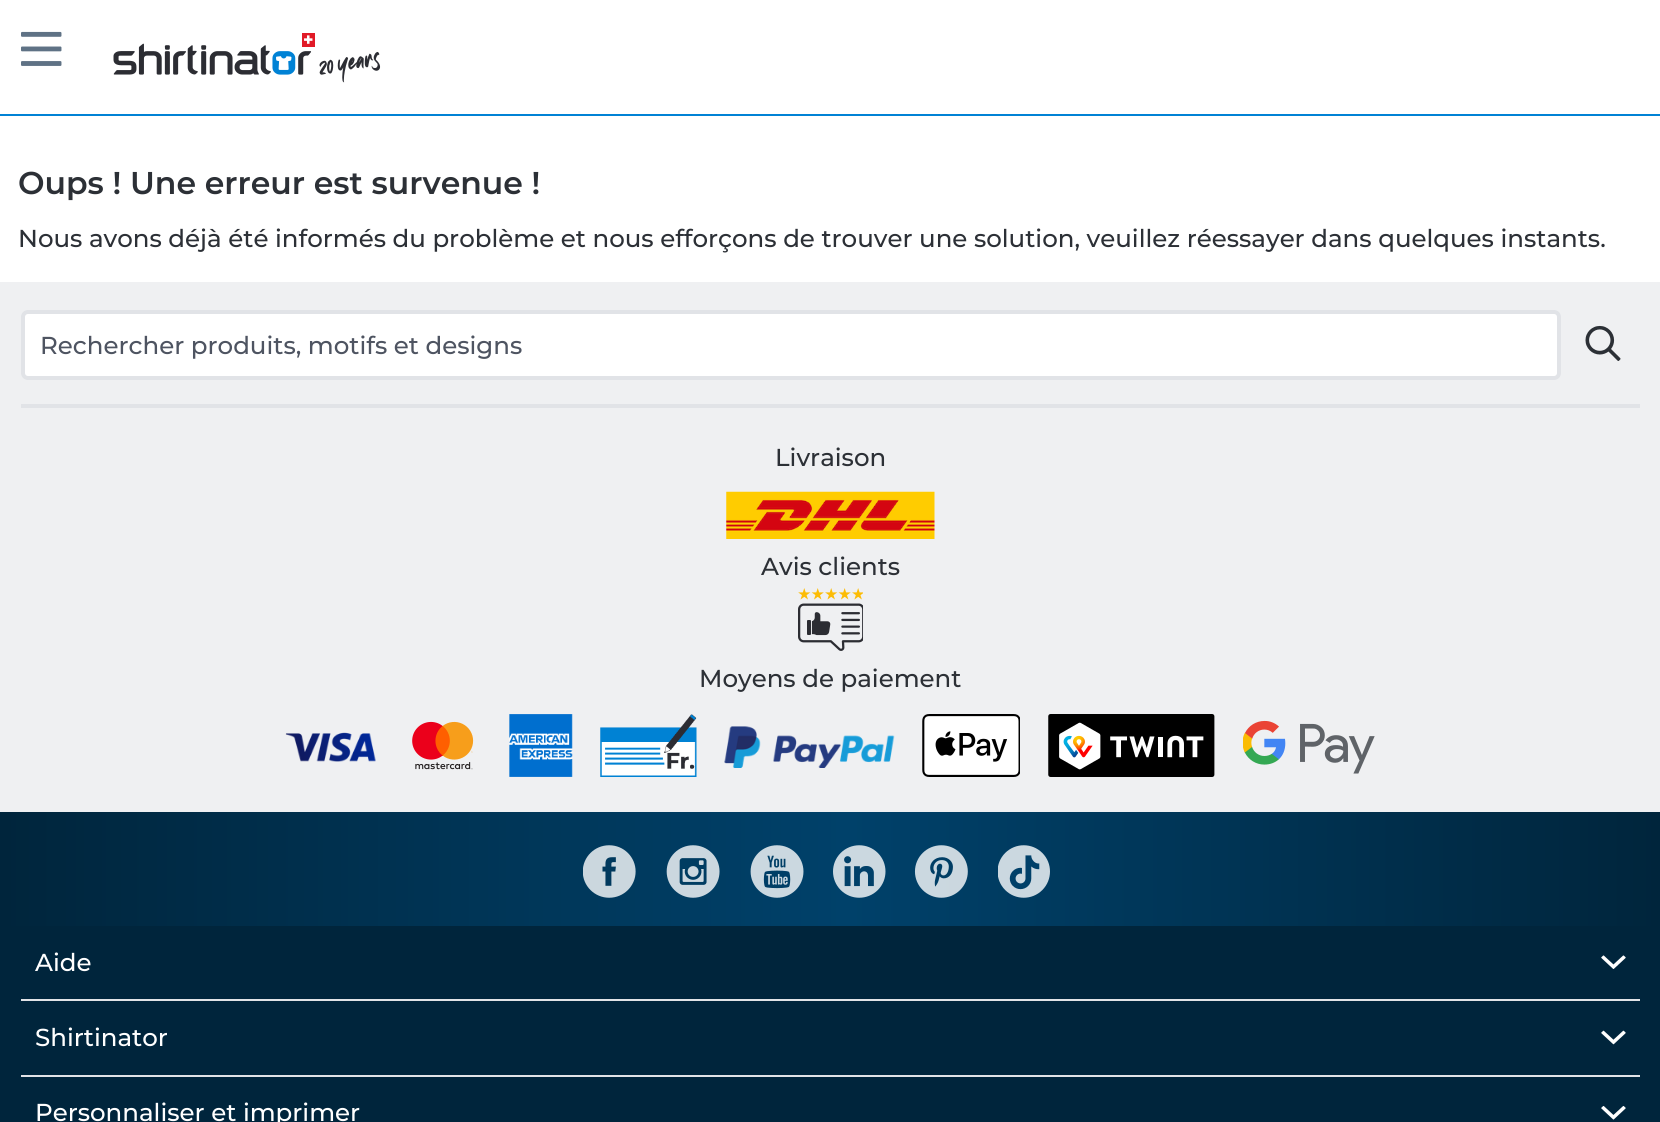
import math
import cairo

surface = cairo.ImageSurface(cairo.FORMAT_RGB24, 1660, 1122)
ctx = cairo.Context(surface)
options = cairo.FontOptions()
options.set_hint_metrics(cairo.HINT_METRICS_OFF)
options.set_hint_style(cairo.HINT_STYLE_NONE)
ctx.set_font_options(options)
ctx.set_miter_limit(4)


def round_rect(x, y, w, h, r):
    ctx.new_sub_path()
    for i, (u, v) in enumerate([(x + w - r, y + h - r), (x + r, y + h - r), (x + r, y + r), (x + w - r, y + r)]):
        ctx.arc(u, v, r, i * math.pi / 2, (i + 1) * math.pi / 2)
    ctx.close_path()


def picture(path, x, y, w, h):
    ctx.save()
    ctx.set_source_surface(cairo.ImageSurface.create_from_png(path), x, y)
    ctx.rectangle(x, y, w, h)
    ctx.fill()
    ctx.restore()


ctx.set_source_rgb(1, 1, 1)
ctx.paint()
ctx.set_source_rgb(0, 0.51, 0.835)
ctx.rectangle(0, 114, 1660, 2)
ctx.fill()
picture("img1.png", 21, 31, 41, 35)
picture("img2.png", 113, 33, 268, 50)
ctx.select_font_face("Montserrat SemiBold")
ctx.set_font_size(31.5)
ctx.set_source_rgb(0.173, 0.188, 0.212)
ctx.move_to(18, 194)
ctx.show_text("Oups ! Une erreur est survenue !")
ctx.select_font_face("Montserrat Medium")
ctx.set_font_size(24.5)
ctx.move_to(18, 247)
ctx.show_text("Nous avons déjà été informés du problème et nous efforçons de trouver une solution, veuillez réessayer dans quelques instants.")
ctx.set_source_rgb(0, 0.145, 0.235)
ctx.rectangle(0, 926, 1660, 196)
ctx.fill()
ctx.set_source_rgb(0.937, 0.941, 0.949)
ctx.rectangle(0, 282, 1660, 530)
ctx.fill()
ctx.set_source_rgb(0.882, 0.89, 0.906)
ctx.rectangle(21, 404, 1619, 4)
ctx.fill()
ctx.set_source_rgb(1, 1, 1)
round_rect(23, 312, 1536, 66, 5)
ctx.fill_preserve()
ctx.set_source_rgb(0.882, 0.89, 0.906)
ctx.set_line_width(4)
ctx.stroke()
ctx.set_source_rgb(0.306, 0.329, 0.38)
ctx.move_to(40, 354)
ctx.show_text("Rechercher produits, motifs et designs")
picture("img3.png", 1585, 325, 36, 36)
ctx.set_source_rgb(0.173, 0.188, 0.212)
ctx.move_to(775, 466)
ctx.show_text("Livraison")
picture("img4.png", 726, 491, 209, 48)
ctx.move_to(761, 575)
ctx.show_text("Avis clients")
picture("img5.png", 798, 588, 65, 63)
ctx.move_to(699, 687)
ctx.show_text("Moyens de paiement")
picture("img6.png", 285, 732, 91, 30)
picture("img7.png", 412, 721, 62, 49)
picture("img8.png", 509, 714, 64, 63)
picture("img9.png", 600, 714, 97, 63)
picture("img10.png", 724, 726, 171, 42)
picture("img11.png", 922, 714, 98, 63)
picture("img12.png", 1048, 714, 167, 63)
picture("img13.png", 1243, 720, 132, 54)
gradient = cairo.LinearGradient(0, 869, 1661, 869)
gradient.add_color_stop_rgba(0, 0, 0.145, 0.235, 1)
gradient.add_color_stop_rgba(0.51, 0, 0.255, 0.416, 1)
gradient.add_color_stop_rgba(1, 0, 0.145, 0.235, 1)
ctx.set_source(gradient)
ctx.rectangle(0, 812, 1660, 114)
ctx.fill()
picture("img14.png", 583, 845, 53, 53)
picture("img15.png", 666, 845, 54, 53)
picture("img16.png", 750, 845, 54, 53)
picture("img17.png", 833, 845, 53, 53)
picture("img18.png", 914, 845, 54, 53)
picture("img19.png", 998, 845, 52, 53)
ctx.set_source_rgb(1, 1, 1)
ctx.move_to(35, 971)
ctx.show_text("Aide")
picture("img20.png", 1601, 955, 25, 14)
ctx.set_source_rgb(0.882, 0.89, 0.906)
ctx.rectangle(21, 999, 1619, 2)
ctx.fill()
ctx.set_source_rgb(1, 1, 1)
ctx.move_to(35, 1046)
ctx.show_text("Shirtinator")
picture("img21.png", 1601, 1030, 25, 15)
ctx.set_source_rgb(0.882, 0.89, 0.906)
ctx.rectangle(21, 1075, 1619, 2)
ctx.fill()
ctx.set_source_rgb(1, 1, 1)
ctx.move_to(35, 1121)
ctx.show_text("Personnaliser et imprimer")
picture("img22.png", 1601, 1106, 25, 14)
surface.write_to_png("page.png")
